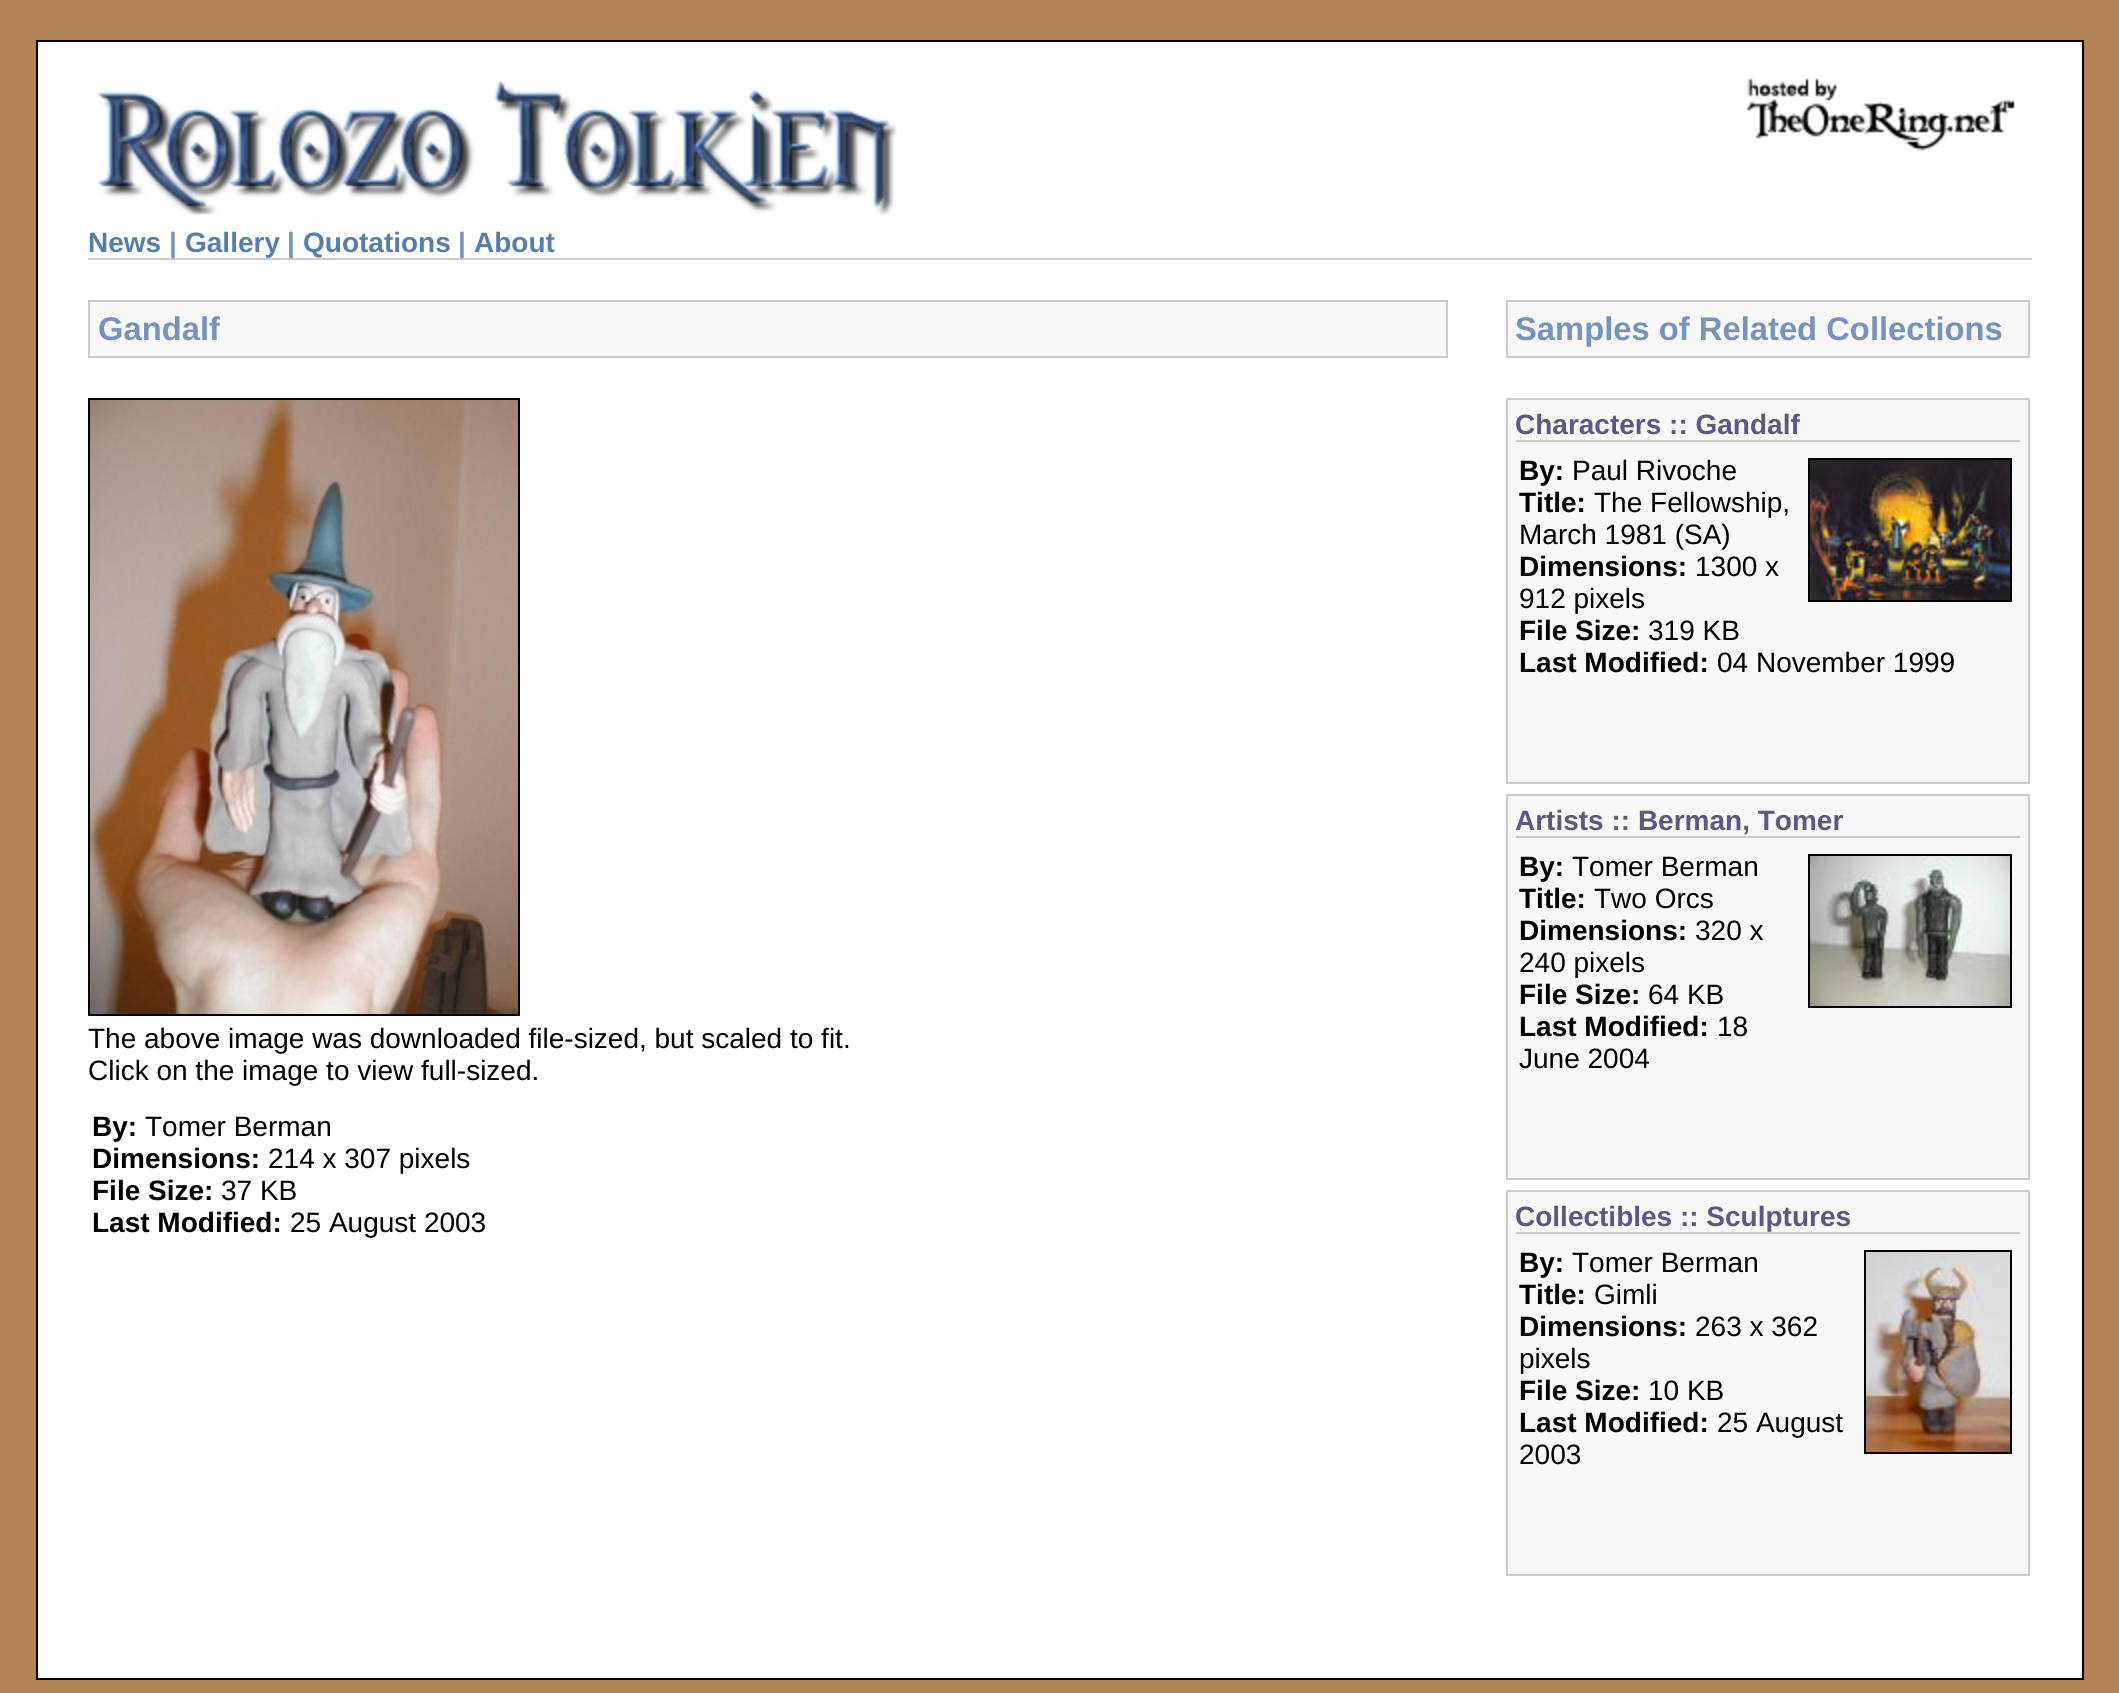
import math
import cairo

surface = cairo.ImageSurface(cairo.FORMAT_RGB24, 2119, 1693)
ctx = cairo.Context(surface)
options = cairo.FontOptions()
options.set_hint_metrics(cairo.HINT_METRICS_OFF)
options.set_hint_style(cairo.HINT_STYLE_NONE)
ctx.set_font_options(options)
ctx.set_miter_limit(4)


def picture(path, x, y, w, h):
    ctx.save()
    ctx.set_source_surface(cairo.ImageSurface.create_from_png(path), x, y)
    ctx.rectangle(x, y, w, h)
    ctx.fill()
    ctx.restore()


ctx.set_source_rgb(0.69, 0.522, 0.325)
ctx.paint()
ctx.set_source_rgb(1, 1, 1)
ctx.rectangle(37, 41, 2046, 1638)
ctx.fill_preserve()
ctx.set_source_rgb(0, 0, 0)
ctx.stroke()
picture("img1.png", 97, 80, 800, 135)
picture("img2.png", 1745, 77, 270, 74)
ctx.set_source_rgb(0.8, 0.8, 0.8)
ctx.rectangle(88, 258, 1944, 2)
ctx.fill()
ctx.select_font_face("Liberation Sans", cairo.FONT_SLANT_NORMAL, cairo.FONT_WEIGHT_BOLD)
ctx.set_font_size(28)
ctx.set_source_rgb(0.325, 0.494, 0.69)
ctx.move_to(88, 252)
ctx.show_text("News")
ctx.set_source_rgb(0.467, 0.573, 0.737)
ctx.move_to(169, 252)
ctx.show_text("|")
ctx.set_source_rgb(0.325, 0.494, 0.69)
ctx.move_to(185, 252)
ctx.show_text("Gallery")
ctx.set_source_rgb(0.467, 0.573, 0.737)
ctx.move_to(287, 252)
ctx.show_text("|")
ctx.set_source_rgb(0.325, 0.494, 0.69)
ctx.move_to(303, 252)
ctx.show_text("Quotations")
ctx.set_source_rgb(0.467, 0.573, 0.737)
ctx.move_to(458, 252)
ctx.show_text("|")
ctx.set_source_rgb(0.325, 0.494, 0.69)
ctx.move_to(474, 252)
ctx.show_text("About")
ctx.set_source_rgb(0.969, 0.969, 0.969)
ctx.rectangle(89, 301, 1358, 56)
ctx.fill_preserve()
ctx.set_source_rgb(0.8, 0.8, 0.8)
ctx.stroke()
ctx.set_font_size(32.75)
ctx.set_source_rgb(0.467, 0.573, 0.737)
ctx.move_to(98, 340)
ctx.show_text("Gandalf")
ctx.rectangle(89, 399, 430, 616)
ctx.set_source_rgb(0, 0, 0)
ctx.stroke()
picture("img3.png", 90, 400, 428, 614)
ctx.select_font_face("Liberation Sans")
ctx.set_font_size(28)
ctx.move_to(88, 1048)
ctx.show_text("The above image was downloaded file-sized, but scaled to fit.")
ctx.move_to(88, 1080)
ctx.show_text("Click on the image to view full-sized.")
ctx.select_font_face("Liberation Sans", cairo.FONT_SLANT_NORMAL, cairo.FONT_WEIGHT_BOLD)
ctx.move_to(92, 1136)
ctx.show_text("By:")
ctx.select_font_face("Liberation Sans")
ctx.move_to(145, 1136)
ctx.show_text("Tomer Berman")
ctx.select_font_face("Liberation Sans", cairo.FONT_SLANT_NORMAL, cairo.FONT_WEIGHT_BOLD)
ctx.move_to(92, 1168)
ctx.show_text("Dimensions:")
ctx.select_font_face("Liberation Sans")
ctx.move_to(268, 1168)
ctx.show_text("214 x 307 pixels")
ctx.select_font_face("Liberation Sans", cairo.FONT_SLANT_NORMAL, cairo.FONT_WEIGHT_BOLD)
ctx.move_to(92, 1200)
ctx.show_text("File Size:")
ctx.select_font_face("Liberation Sans")
ctx.move_to(221, 1200)
ctx.show_text("37 KB")
ctx.select_font_face("Liberation Sans", cairo.FONT_SLANT_NORMAL, cairo.FONT_WEIGHT_BOLD)
ctx.move_to(92, 1232)
ctx.show_text("Last Modified:")
ctx.select_font_face("Liberation Sans")
ctx.move_to(290, 1232)
ctx.show_text("25 August 2003")
ctx.set_source_rgb(0.969, 0.969, 0.969)
ctx.rectangle(1507, 301, 522, 56)
ctx.fill_preserve()
ctx.set_source_rgb(0.8, 0.8, 0.8)
ctx.stroke()
ctx.select_font_face("Liberation Sans", cairo.FONT_SLANT_NORMAL, cairo.FONT_WEIGHT_BOLD)
ctx.set_font_size(32.75)
ctx.set_source_rgb(0.467, 0.573, 0.737)
ctx.move_to(1515, 340)
ctx.show_text("Samples of Related Collections")
ctx.set_source_rgb(0.969, 0.969, 0.969)
ctx.rectangle(1507, 399, 522, 384)
ctx.fill_preserve()
ctx.set_source_rgb(0.8, 0.8, 0.8)
ctx.stroke()
ctx.rectangle(1516, 440, 504, 2)
ctx.fill()
ctx.set_font_size(28)
ctx.set_source_rgb(0.349, 0.349, 0.514)
ctx.move_to(1515, 434)
ctx.show_text("Characters :: Gandalf")
ctx.rectangle(1809, 459, 202, 142)
ctx.set_source_rgb(0, 0, 0)
ctx.stroke()
picture("img4.png", 1810, 460, 200, 140)
ctx.move_to(1519, 480)
ctx.show_text("By:")
ctx.select_font_face("Liberation Sans")
ctx.move_to(1572, 480)
ctx.show_text("Paul Rivoche")
ctx.select_font_face("Liberation Sans", cairo.FONT_SLANT_NORMAL, cairo.FONT_WEIGHT_BOLD)
ctx.move_to(1519, 512)
ctx.show_text("Title:")
ctx.select_font_face("Liberation Sans")
ctx.move_to(1594, 512)
ctx.show_text("The Fellowship,")
ctx.move_to(1519, 544)
ctx.show_text("March 1981 (SA)")
ctx.select_font_face("Liberation Sans", cairo.FONT_SLANT_NORMAL, cairo.FONT_WEIGHT_BOLD)
ctx.move_to(1519, 576)
ctx.show_text("Dimensions:")
ctx.select_font_face("Liberation Sans")
ctx.move_to(1695, 576)
ctx.show_text("1300 x")
ctx.move_to(1519, 608)
ctx.show_text("912 pixels")
ctx.select_font_face("Liberation Sans", cairo.FONT_SLANT_NORMAL, cairo.FONT_WEIGHT_BOLD)
ctx.move_to(1519, 640)
ctx.show_text("File Size:")
ctx.select_font_face("Liberation Sans")
ctx.move_to(1648, 640)
ctx.show_text("319 KB")
ctx.select_font_face("Liberation Sans", cairo.FONT_SLANT_NORMAL, cairo.FONT_WEIGHT_BOLD)
ctx.move_to(1519, 672)
ctx.show_text("Last Modified:")
ctx.select_font_face("Liberation Sans")
ctx.move_to(1717, 672)
ctx.show_text("04 November 1999")
ctx.set_source_rgb(0.969, 0.969, 0.969)
ctx.rectangle(1507, 795, 522, 384)
ctx.fill_preserve()
ctx.set_source_rgb(0.8, 0.8, 0.8)
ctx.stroke()
ctx.rectangle(1516, 836, 504, 2)
ctx.fill()
ctx.select_font_face("Liberation Sans", cairo.FONT_SLANT_NORMAL, cairo.FONT_WEIGHT_BOLD)
ctx.set_source_rgb(0.349, 0.349, 0.514)
ctx.move_to(1515, 830)
ctx.show_text("Artists :: Berman, Tomer")
ctx.set_source_rgb(0, 0, 0)
ctx.move_to(1519, 876)
ctx.show_text("By:")
ctx.select_font_face("Liberation Sans")
ctx.move_to(1572, 876)
ctx.show_text("Tomer Berman")
ctx.select_font_face("Liberation Sans", cairo.FONT_SLANT_NORMAL, cairo.FONT_WEIGHT_BOLD)
ctx.move_to(1519, 908)
ctx.show_text("Title:")
ctx.select_font_face("Liberation Sans")
ctx.move_to(1594, 908)
ctx.show_text("Two Orcs")
ctx.select_font_face("Liberation Sans", cairo.FONT_SLANT_NORMAL, cairo.FONT_WEIGHT_BOLD)
ctx.move_to(1519, 940)
ctx.show_text("Dimensions:")
ctx.select_font_face("Liberation Sans")
ctx.move_to(1695, 940)
ctx.show_text("320 x")
ctx.move_to(1519, 972)
ctx.show_text("240 pixels")
ctx.select_font_face("Liberation Sans", cairo.FONT_SLANT_NORMAL, cairo.FONT_WEIGHT_BOLD)
ctx.move_to(1519, 1004)
ctx.show_text("File Size:")
ctx.select_font_face("Liberation Sans")
ctx.move_to(1648, 1004)
ctx.show_text("64 KB")
ctx.select_font_face("Liberation Sans", cairo.FONT_SLANT_NORMAL, cairo.FONT_WEIGHT_BOLD)
ctx.move_to(1519, 1036)
ctx.show_text("Last Modified:")
ctx.select_font_face("Liberation Sans")
ctx.move_to(1717, 1036)
ctx.show_text("18")
ctx.move_to(1519, 1068)
ctx.show_text("June 2004")
ctx.rectangle(1809, 855, 202, 152)
ctx.stroke()
picture("img5.png", 1810, 856, 200, 150)
ctx.set_source_rgb(0.969, 0.969, 0.969)
ctx.rectangle(1507, 1191, 522, 384)
ctx.fill_preserve()
ctx.set_source_rgb(0.8, 0.8, 0.8)
ctx.stroke()
ctx.rectangle(1516, 1232, 504, 2)
ctx.fill()
ctx.select_font_face("Liberation Sans", cairo.FONT_SLANT_NORMAL, cairo.FONT_WEIGHT_BOLD)
ctx.set_source_rgb(0.349, 0.349, 0.514)
ctx.move_to(1515, 1226)
ctx.show_text("Collectibles :: Sculptures")
ctx.set_source_rgb(0, 0, 0)
ctx.move_to(1519, 1272)
ctx.show_text("By:")
ctx.select_font_face("Liberation Sans")
ctx.move_to(1572, 1272)
ctx.show_text("Tomer Berman")
ctx.select_font_face("Liberation Sans", cairo.FONT_SLANT_NORMAL, cairo.FONT_WEIGHT_BOLD)
ctx.move_to(1519, 1304)
ctx.show_text("Title:")
ctx.select_font_face("Liberation Sans")
ctx.move_to(1594, 1304)
ctx.show_text("Gimli")
ctx.select_font_face("Liberation Sans", cairo.FONT_SLANT_NORMAL, cairo.FONT_WEIGHT_BOLD)
ctx.move_to(1519, 1336)
ctx.show_text("Dimensions:")
ctx.select_font_face("Liberation Sans")
ctx.move_to(1695, 1336)
ctx.show_text("263 x 362")
ctx.move_to(1519, 1368)
ctx.show_text("pixels")
ctx.select_font_face("Liberation Sans", cairo.FONT_SLANT_NORMAL, cairo.FONT_WEIGHT_BOLD)
ctx.move_to(1519, 1400)
ctx.show_text("File Size:")
ctx.select_font_face("Liberation Sans")
ctx.move_to(1648, 1400)
ctx.show_text("10 KB")
ctx.select_font_face("Liberation Sans", cairo.FONT_SLANT_NORMAL, cairo.FONT_WEIGHT_BOLD)
ctx.move_to(1519, 1432)
ctx.show_text("Last Modified:")
ctx.select_font_face("Liberation Sans")
ctx.move_to(1717, 1432)
ctx.show_text("25 August")
ctx.move_to(1519, 1464)
ctx.show_text("2003")
ctx.rectangle(1865, 1251, 146, 202)
ctx.stroke()
picture("img6.png", 1866, 1252, 144, 200)
surface.write_to_png("page.png")
